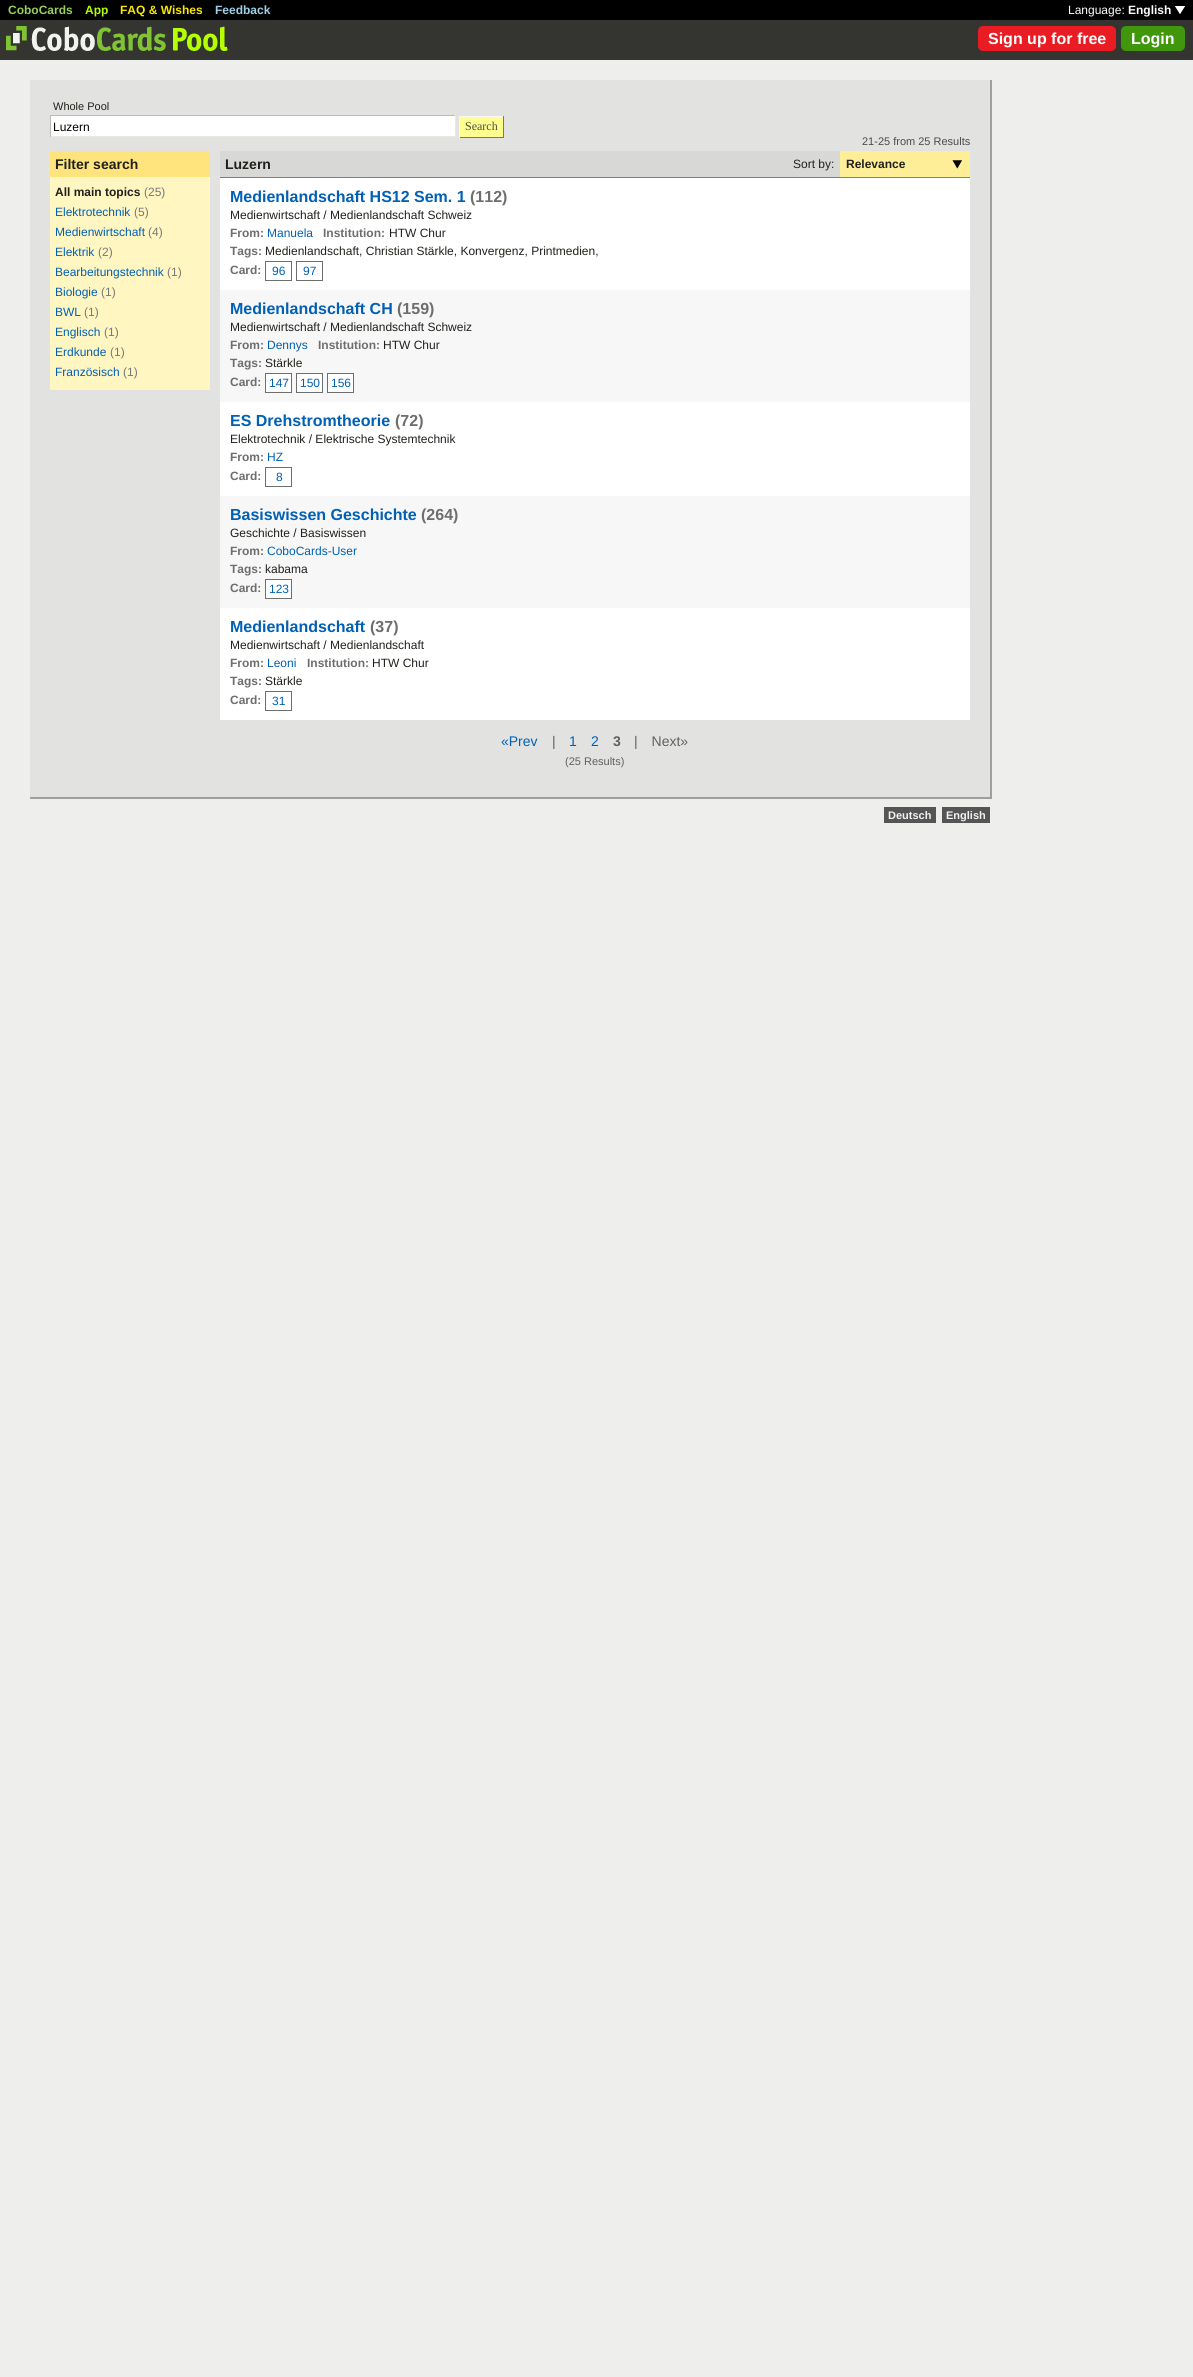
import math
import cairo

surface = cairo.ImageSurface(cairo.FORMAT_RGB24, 1193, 2377)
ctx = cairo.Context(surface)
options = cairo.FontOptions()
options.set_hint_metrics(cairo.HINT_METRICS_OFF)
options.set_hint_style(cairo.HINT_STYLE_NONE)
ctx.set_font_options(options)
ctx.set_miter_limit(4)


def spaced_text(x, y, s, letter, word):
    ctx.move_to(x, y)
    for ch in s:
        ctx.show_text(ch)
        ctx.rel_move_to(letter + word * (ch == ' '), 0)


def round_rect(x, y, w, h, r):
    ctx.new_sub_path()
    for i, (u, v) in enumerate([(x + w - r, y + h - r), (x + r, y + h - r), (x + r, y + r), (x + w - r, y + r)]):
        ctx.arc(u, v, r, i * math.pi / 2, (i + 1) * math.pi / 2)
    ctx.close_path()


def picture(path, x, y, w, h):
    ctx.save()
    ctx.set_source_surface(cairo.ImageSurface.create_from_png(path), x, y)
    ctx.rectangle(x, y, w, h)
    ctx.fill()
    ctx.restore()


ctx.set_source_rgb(0.933, 0.937, 0.922)
ctx.paint()
ctx.set_source_rgb(0.204, 0.208, 0.188)
ctx.rectangle(0, 20, 1193, 40)
ctx.fill()
ctx.set_source_rgb(0, 0, 0)
ctx.rectangle(0, 0, 1193, 20)
ctx.fill()
ctx.select_font_face("Liberation Sans", cairo.FONT_SLANT_NORMAL, cairo.FONT_WEIGHT_BOLD)
ctx.set_font_size(12)
ctx.set_source_rgb(0.592, 0.812, 0.345)
ctx.move_to(8, 14)
ctx.show_text("CoboCards")
ctx.set_source_rgb(0.706, 1, 0)
ctx.move_to(85, 14)
ctx.show_text("App")
ctx.set_source_rgb(0.976, 0.91, 0)
ctx.move_to(120, 14)
ctx.show_text("FAQ & Wishes")
ctx.set_source_rgb(0.624, 0.812, 0.906)
ctx.move_to(215, 14)
ctx.show_text("Feedback")
ctx.select_font_face("Liberation Sans")
ctx.set_source_rgb(1, 1, 1)
ctx.move_to(1068, 14)
ctx.show_text("Language:")
ctx.select_font_face("Liberation Sans", cairo.FONT_SLANT_NORMAL, cairo.FONT_WEIGHT_BOLD)
ctx.move_to(1128, 14)
ctx.show_text("English")
picture("img1.png", 1175, 6, 10, 8)
picture("img2.png", 6, 26, 222, 25)
ctx.set_source_rgb(0.914, 0.11, 0.141)
round_rect(978, 26, 138, 25, 5)
ctx.fill()
ctx.set_font_size(16)
ctx.set_source_rgb(1, 1, 1)
ctx.move_to(988, 44)
ctx.show_text("Sign up for free")
ctx.set_source_rgb(0.251, 0.592, 0.043)
round_rect(1121, 26, 64, 25, 5)
ctx.fill()
ctx.set_source_rgb(1, 1, 1)
ctx.move_to(1131, 44)
ctx.show_text("Login")
ctx.set_source_rgb(0.886, 0.89, 0.878)
ctx.rectangle(30, 80, 960, 717)
ctx.fill()
ctx.set_source_rgb(0.624, 0.624, 0.624)
ctx.rectangle(990, 80, 2, 719)
ctx.fill()
ctx.rectangle(30, 797, 962, 2)
ctx.fill()
ctx.select_font_face("Liberation Sans")
ctx.set_font_size(11)
ctx.set_source_rgb(0.129, 0.125, 0.11)
ctx.move_to(53, 110)
ctx.show_text("Whole Pool")
ctx.set_source_rgb(1, 1, 1)
ctx.rectangle(51, 116, 404, 20)
ctx.fill()
ctx.set_source_rgb(0.733, 0.733, 0.729)
ctx.rectangle(50, 115, 406, 1)
ctx.fill()
ctx.set_source_rgb(0.91, 0.914, 0.906)
ctx.rectangle(455, 115, 1, 22)
ctx.fill()
ctx.rectangle(50, 136, 406, 1)
ctx.fill()
ctx.set_source_rgb(0.733, 0.733, 0.729)
ctx.rectangle(50, 115, 1, 22)
ctx.fill()
ctx.set_font_size(12)
ctx.set_source_rgb(0, 0, 0)
ctx.move_to(53, 131)
ctx.show_text("Luzern")
ctx.set_source_rgb(1, 1, 0.565)
ctx.rectangle(460, 117, 43, 20)
ctx.fill()
ctx.set_source_rgb(0.965, 0.965, 0.965)
ctx.rectangle(459, 116, 45, 1)
ctx.fill()
ctx.set_source_rgb(0.467, 0.471, 0.463)
ctx.rectangle(503, 116, 1, 22)
ctx.fill()
ctx.rectangle(459, 137, 45, 1)
ctx.fill()
ctx.set_source_rgb(0.965, 0.965, 0.965)
ctx.rectangle(459, 116, 1, 22)
ctx.fill()
ctx.select_font_face("Liberation Serif")
ctx.set_source_rgb(0.294, 0.298, 0.286)
ctx.move_to(465, 130)
ctx.show_text("Search")
ctx.set_source_rgb(1, 0.894, 0.494)
ctx.rectangle(50, 151, 160, 26)
ctx.fill()
ctx.select_font_face("Liberation Sans", cairo.FONT_SLANT_NORMAL, cairo.FONT_WEIGHT_BOLD)
ctx.set_font_size(14)
ctx.set_source_rgb(0.129, 0.125, 0.11)
ctx.move_to(55, 169)
ctx.show_text("Filter search")
ctx.set_source_rgb(1, 0.961, 0.757)
ctx.rectangle(50, 177, 160, 213)
ctx.fill()
ctx.set_font_size(12)
ctx.set_source_rgb(0.129, 0.125, 0.11)
ctx.move_to(55, 196)
ctx.show_text("All main topics")
ctx.select_font_face("Liberation Sans")
ctx.set_source_rgb(0.467, 0.471, 0.463)
ctx.move_to(144, 196)
ctx.show_text("(25)")
ctx.set_source_rgb(0, 0.376, 0.714)
ctx.move_to(55, 216)
ctx.show_text("Elektrotechnik")
ctx.set_source_rgb(0.467, 0.471, 0.463)
ctx.move_to(134, 216)
ctx.show_text("(5)")
ctx.set_source_rgb(0, 0.376, 0.714)
ctx.move_to(55, 236)
ctx.show_text("Medienwirtschaft")
ctx.set_source_rgb(0.467, 0.471, 0.463)
ctx.move_to(148, 236)
ctx.show_text("(4)")
ctx.set_source_rgb(0, 0.376, 0.714)
ctx.move_to(55, 256)
ctx.show_text("Elektrik")
ctx.set_source_rgb(0.467, 0.471, 0.463)
ctx.move_to(98, 256)
ctx.show_text("(2)")
ctx.set_source_rgb(0, 0.376, 0.714)
ctx.move_to(55, 276)
ctx.show_text("Bearbeitungstechnik")
ctx.set_source_rgb(0.467, 0.471, 0.463)
ctx.move_to(167, 276)
ctx.show_text("(1)")
ctx.set_source_rgb(0, 0.376, 0.714)
ctx.move_to(55, 296)
ctx.show_text("Biologie")
ctx.set_source_rgb(0.467, 0.471, 0.463)
ctx.move_to(101, 296)
ctx.show_text("(1)")
ctx.set_source_rgb(0, 0.376, 0.714)
ctx.move_to(55, 316)
ctx.show_text("BWL")
ctx.set_source_rgb(0.467, 0.471, 0.463)
ctx.move_to(84, 316)
ctx.show_text("(1)")
ctx.set_source_rgb(0, 0.376, 0.714)
ctx.move_to(55, 336)
ctx.show_text("Englisch")
ctx.set_source_rgb(0.467, 0.471, 0.463)
ctx.move_to(104, 336)
ctx.show_text("(1)")
ctx.set_source_rgb(0, 0.376, 0.714)
ctx.move_to(55, 356)
ctx.show_text("Erdkunde")
ctx.set_source_rgb(0.467, 0.471, 0.463)
ctx.move_to(110, 356)
ctx.show_text("(1)")
ctx.set_source_rgb(0, 0.376, 0.714)
ctx.move_to(55, 376)
ctx.show_text("Französisch")
ctx.set_source_rgb(0.467, 0.471, 0.463)
ctx.move_to(123, 376)
ctx.show_text("(1)")
ctx.set_font_size(11)
ctx.set_source_rgb(0.294, 0.298, 0.286)
ctx.move_to(862, 145)
ctx.show_text("21-25 from 25 Results")
ctx.set_source_rgb(0.847, 0.851, 0.843)
ctx.rectangle(220, 151, 620, 26)
ctx.fill()
ctx.set_source_rgb(0.502, 0.502, 0.498)
ctx.rectangle(220, 177, 750, 1)
ctx.fill()
ctx.select_font_face("Liberation Sans", cairo.FONT_SLANT_NORMAL, cairo.FONT_WEIGHT_BOLD)
ctx.set_font_size(14)
ctx.set_source_rgb(0.129, 0.125, 0.11)
ctx.move_to(225, 169)
ctx.show_text("Luzern")
ctx.select_font_face("Liberation Sans")
ctx.set_font_size(12)
ctx.move_to(793, 168)
ctx.show_text("Sort by:")
ctx.set_source_rgb(1, 0.933, 0.596)
ctx.rectangle(840, 151, 130, 26)
ctx.fill()
ctx.select_font_face("Liberation Sans", cairo.FONT_SLANT_NORMAL, cairo.FONT_WEIGHT_BOLD)
ctx.set_source_rgb(0.129, 0.125, 0.11)
ctx.move_to(846, 168)
ctx.show_text("Relevance")
picture("img3.png", 952, 160, 10, 9)
ctx.set_source_rgb(1, 1, 1)
ctx.rectangle(220, 178, 750, 112)
ctx.fill()
ctx.set_font_size(16)
ctx.set_source_rgb(0, 0.376, 0.714)
ctx.move_to(230, 202)
ctx.show_text("Medienlandschaft HS12 Sem. 1")
ctx.set_source_rgb(0.427, 0.435, 0.424)
ctx.move_to(470, 202)
ctx.show_text("(112)")
ctx.select_font_face("Liberation Sans")
ctx.set_font_size(12)
ctx.set_source_rgb(0.129, 0.125, 0.11)
ctx.move_to(230, 219)
ctx.show_text("Medienwirtschaft / Medienlandschaft Schweiz")
ctx.select_font_face("Liberation Sans", cairo.FONT_SLANT_NORMAL, cairo.FONT_WEIGHT_BOLD)
ctx.set_source_rgb(0.427, 0.435, 0.424)
ctx.move_to(230, 237)
ctx.show_text("From:")
ctx.select_font_face("Liberation Sans")
ctx.set_source_rgb(0, 0.376, 0.714)
ctx.move_to(267, 237)
ctx.show_text("Manuela")
ctx.select_font_face("Liberation Sans", cairo.FONT_SLANT_NORMAL, cairo.FONT_WEIGHT_BOLD)
ctx.set_source_rgb(0.427, 0.435, 0.424)
ctx.move_to(323, 237)
ctx.show_text("Institution:")
ctx.select_font_face("Liberation Sans")
ctx.set_source_rgb(0.129, 0.125, 0.11)
ctx.move_to(389, 237)
ctx.show_text("HTW Chur")
ctx.select_font_face("Liberation Sans", cairo.FONT_SLANT_NORMAL, cairo.FONT_WEIGHT_BOLD)
ctx.set_source_rgb(0.427, 0.435, 0.424)
ctx.move_to(230, 255)
ctx.show_text("Tags:")
ctx.select_font_face("Liberation Sans")
ctx.set_source_rgb(0.129, 0.125, 0.11)
ctx.move_to(265, 255)
ctx.show_text("Medienlandschaft, Christian Stärkle, Konvergenz, Printmedien,")
ctx.select_font_face("Liberation Sans", cairo.FONT_SLANT_NORMAL, cairo.FONT_WEIGHT_BOLD)
ctx.set_source_rgb(0.427, 0.435, 0.424)
ctx.move_to(230, 274)
ctx.show_text("Card:")
ctx.rectangle(265.5, 261.5, 26, 19)
ctx.set_line_width(1)
ctx.stroke()
ctx.select_font_face("Liberation Sans")
ctx.set_source_rgb(0, 0.376, 0.714)
ctx.move_to(272, 275)
ctx.show_text("96")
ctx.rectangle(296.5, 261.5, 26, 19)
ctx.set_source_rgb(0.427, 0.435, 0.424)
ctx.stroke()
ctx.set_source_rgb(0, 0.376, 0.714)
ctx.move_to(303, 275)
ctx.show_text("97")
ctx.set_source_rgb(0.965, 0.965, 0.965)
ctx.rectangle(220, 290, 750, 112)
ctx.fill()
ctx.select_font_face("Liberation Sans", cairo.FONT_SLANT_NORMAL, cairo.FONT_WEIGHT_BOLD)
ctx.set_font_size(16)
ctx.set_source_rgb(0, 0.376, 0.714)
ctx.move_to(230, 314)
ctx.show_text("Medienlandschaft CH")
ctx.set_source_rgb(0.427, 0.435, 0.424)
ctx.move_to(397, 314)
ctx.show_text("(159)")
ctx.select_font_face("Liberation Sans")
ctx.set_font_size(12)
ctx.set_source_rgb(0.129, 0.125, 0.11)
ctx.move_to(230, 331)
ctx.show_text("Medienwirtschaft / Medienlandschaft Schweiz")
ctx.select_font_face("Liberation Sans", cairo.FONT_SLANT_NORMAL, cairo.FONT_WEIGHT_BOLD)
ctx.set_source_rgb(0.427, 0.435, 0.424)
ctx.move_to(230, 349)
ctx.show_text("From:")
ctx.select_font_face("Liberation Sans")
ctx.set_source_rgb(0, 0.376, 0.714)
ctx.move_to(267, 349)
ctx.show_text("Dennys")
ctx.select_font_face("Liberation Sans", cairo.FONT_SLANT_NORMAL, cairo.FONT_WEIGHT_BOLD)
ctx.set_source_rgb(0.427, 0.435, 0.424)
ctx.move_to(318, 349)
ctx.show_text("Institution:")
ctx.select_font_face("Liberation Sans")
ctx.set_source_rgb(0.129, 0.125, 0.11)
ctx.move_to(383, 349)
ctx.show_text("HTW Chur")
ctx.select_font_face("Liberation Sans", cairo.FONT_SLANT_NORMAL, cairo.FONT_WEIGHT_BOLD)
ctx.set_source_rgb(0.427, 0.435, 0.424)
ctx.move_to(230, 367)
ctx.show_text("Tags:")
ctx.select_font_face("Liberation Sans")
ctx.set_source_rgb(0.129, 0.125, 0.11)
ctx.move_to(265, 367)
ctx.show_text("Stärkle")
ctx.select_font_face("Liberation Sans", cairo.FONT_SLANT_NORMAL, cairo.FONT_WEIGHT_BOLD)
ctx.set_source_rgb(0.427, 0.435, 0.424)
ctx.move_to(230, 386)
ctx.show_text("Card:")
ctx.set_source_rgb(1, 1, 1)
ctx.rectangle(265.5, 373.5, 26, 19)
ctx.fill_preserve()
ctx.set_source_rgb(0.427, 0.435, 0.424)
ctx.stroke()
ctx.select_font_face("Liberation Sans")
ctx.set_source_rgb(0, 0.376, 0.714)
ctx.move_to(269, 387)
ctx.show_text("147")
ctx.set_source_rgb(1, 1, 1)
ctx.rectangle(296.5, 373.5, 26, 19)
ctx.fill_preserve()
ctx.set_source_rgb(0.427, 0.435, 0.424)
ctx.stroke()
ctx.set_source_rgb(0, 0.376, 0.714)
ctx.move_to(300, 387)
ctx.show_text("150")
ctx.set_source_rgb(1, 1, 1)
ctx.rectangle(327.5, 373.5, 26, 19)
ctx.fill_preserve()
ctx.set_source_rgb(0.427, 0.435, 0.424)
ctx.stroke()
ctx.set_source_rgb(0, 0.376, 0.714)
ctx.move_to(331, 387)
ctx.show_text("156")
ctx.set_source_rgb(1, 1, 1)
ctx.rectangle(220, 402, 750, 94)
ctx.fill()
ctx.select_font_face("Liberation Sans", cairo.FONT_SLANT_NORMAL, cairo.FONT_WEIGHT_BOLD)
ctx.set_font_size(16)
ctx.set_source_rgb(0, 0.376, 0.714)
ctx.move_to(230, 426)
ctx.show_text("ES Drehstromtheorie")
ctx.set_source_rgb(0.427, 0.435, 0.424)
ctx.move_to(395, 426)
ctx.show_text("(72)")
ctx.select_font_face("Liberation Sans")
ctx.set_font_size(12)
ctx.set_source_rgb(0.129, 0.125, 0.11)
ctx.move_to(230, 443)
ctx.show_text("Elektrotechnik / Elektrische Systemtechnik")
ctx.select_font_face("Liberation Sans", cairo.FONT_SLANT_NORMAL, cairo.FONT_WEIGHT_BOLD)
ctx.set_source_rgb(0.427, 0.435, 0.424)
ctx.move_to(230, 461)
ctx.show_text("From:")
ctx.select_font_face("Liberation Sans")
ctx.set_source_rgb(0, 0.376, 0.714)
ctx.move_to(267, 461)
ctx.show_text("HZ")
ctx.select_font_face("Liberation Sans", cairo.FONT_SLANT_NORMAL, cairo.FONT_WEIGHT_BOLD)
ctx.set_source_rgb(0.427, 0.435, 0.424)
ctx.move_to(230, 480)
ctx.show_text("Card:")
ctx.rectangle(265.5, 467.5, 26, 19)
ctx.stroke()
ctx.select_font_face("Liberation Sans")
ctx.set_source_rgb(0, 0.376, 0.714)
ctx.move_to(276, 481)
ctx.show_text("8")
ctx.set_source_rgb(0.965, 0.965, 0.965)
ctx.rectangle(220, 496, 750, 112)
ctx.fill()
ctx.select_font_face("Liberation Sans", cairo.FONT_SLANT_NORMAL, cairo.FONT_WEIGHT_BOLD)
ctx.set_font_size(16)
ctx.set_source_rgb(0, 0.376, 0.714)
ctx.move_to(230, 520)
ctx.show_text("Basiswissen Geschichte")
ctx.set_source_rgb(0.427, 0.435, 0.424)
ctx.move_to(421, 520)
ctx.show_text("(264)")
ctx.select_font_face("Liberation Sans")
ctx.set_font_size(12)
ctx.set_source_rgb(0.129, 0.125, 0.11)
ctx.move_to(230, 537)
ctx.show_text("Geschichte / Basiswissen")
ctx.select_font_face("Liberation Sans", cairo.FONT_SLANT_NORMAL, cairo.FONT_WEIGHT_BOLD)
ctx.set_source_rgb(0.427, 0.435, 0.424)
ctx.move_to(230, 555)
ctx.show_text("From:")
ctx.select_font_face("Liberation Sans")
ctx.set_source_rgb(0, 0.376, 0.714)
ctx.move_to(267, 555)
ctx.show_text("CoboCards-User")
ctx.select_font_face("Liberation Sans", cairo.FONT_SLANT_NORMAL, cairo.FONT_WEIGHT_BOLD)
ctx.set_source_rgb(0.427, 0.435, 0.424)
ctx.move_to(230, 573)
ctx.show_text("Tags:")
ctx.select_font_face("Liberation Sans")
ctx.set_source_rgb(0.129, 0.125, 0.11)
ctx.move_to(265, 573)
ctx.show_text("kabama")
ctx.select_font_face("Liberation Sans", cairo.FONT_SLANT_NORMAL, cairo.FONT_WEIGHT_BOLD)
ctx.set_source_rgb(0.427, 0.435, 0.424)
ctx.move_to(230, 592)
ctx.show_text("Card:")
ctx.set_source_rgb(1, 1, 1)
ctx.rectangle(265.5, 579.5, 26, 19)
ctx.fill_preserve()
ctx.set_source_rgb(0.427, 0.435, 0.424)
ctx.stroke()
ctx.select_font_face("Liberation Sans")
ctx.set_source_rgb(0, 0.376, 0.714)
ctx.move_to(269, 593)
ctx.show_text("123")
ctx.set_source_rgb(1, 1, 1)
ctx.rectangle(220, 608, 750, 112)
ctx.fill()
ctx.select_font_face("Liberation Sans", cairo.FONT_SLANT_NORMAL, cairo.FONT_WEIGHT_BOLD)
ctx.set_font_size(16)
ctx.set_source_rgb(0, 0.376, 0.714)
ctx.move_to(230, 632)
ctx.show_text("Medienlandschaft")
ctx.set_source_rgb(0.427, 0.435, 0.424)
ctx.move_to(370, 632)
ctx.show_text("(37)")
ctx.select_font_face("Liberation Sans")
ctx.set_font_size(12)
ctx.set_source_rgb(0.129, 0.125, 0.11)
ctx.move_to(230, 649)
ctx.show_text("Medienwirtschaft / Medienlandschaft")
ctx.select_font_face("Liberation Sans", cairo.FONT_SLANT_NORMAL, cairo.FONT_WEIGHT_BOLD)
ctx.set_source_rgb(0.427, 0.435, 0.424)
ctx.move_to(230, 667)
ctx.show_text("From:")
ctx.select_font_face("Liberation Sans")
ctx.set_source_rgb(0, 0.376, 0.714)
ctx.move_to(267, 667)
ctx.show_text("Leoni")
ctx.select_font_face("Liberation Sans", cairo.FONT_SLANT_NORMAL, cairo.FONT_WEIGHT_BOLD)
ctx.set_source_rgb(0.427, 0.435, 0.424)
ctx.move_to(307, 667)
ctx.show_text("Institution:")
ctx.select_font_face("Liberation Sans")
ctx.set_source_rgb(0.129, 0.125, 0.11)
ctx.move_to(372, 667)
ctx.show_text("HTW Chur")
ctx.select_font_face("Liberation Sans", cairo.FONT_SLANT_NORMAL, cairo.FONT_WEIGHT_BOLD)
ctx.set_source_rgb(0.427, 0.435, 0.424)
ctx.move_to(230, 685)
ctx.show_text("Tags:")
ctx.select_font_face("Liberation Sans")
ctx.set_source_rgb(0.129, 0.125, 0.11)
ctx.move_to(265, 685)
ctx.show_text("Stärkle")
ctx.select_font_face("Liberation Sans", cairo.FONT_SLANT_NORMAL, cairo.FONT_WEIGHT_BOLD)
ctx.set_source_rgb(0.427, 0.435, 0.424)
ctx.move_to(230, 704)
ctx.show_text("Card:")
ctx.rectangle(265.5, 691.5, 26, 19)
ctx.stroke()
ctx.select_font_face("Liberation Sans")
ctx.set_source_rgb(0, 0.376, 0.714)
ctx.move_to(272, 705)
ctx.show_text("31")
ctx.set_font_size(14)
ctx.move_to(501, 746)
ctx.show_text("«Prev")
ctx.set_source_rgb(0.376, 0.376, 0.376)
ctx.move_to(552, 746)
ctx.show_text("|")
ctx.set_source_rgb(0, 0.376, 0.714)
ctx.move_to(569, 746)
ctx.show_text("1")
ctx.move_to(591, 746)
ctx.show_text("2")
ctx.select_font_face("Liberation Sans", cairo.FONT_SLANT_NORMAL, cairo.FONT_WEIGHT_BOLD)
ctx.set_source_rgb(0.376, 0.376, 0.376)
ctx.move_to(613, 746)
ctx.show_text("3")
ctx.select_font_face("Liberation Sans")
spaced_text(634, 746, "| Next»", 0, 10)
ctx.set_font_size(11)
ctx.move_to(565, 765)
ctx.show_text("(25 Results)")
ctx.set_source_rgb(0.333, 0.333, 0.333)
ctx.rectangle(884, 807, 52, 16)
ctx.fill()
ctx.select_font_face("Liberation Sans", cairo.FONT_SLANT_NORMAL, cairo.FONT_WEIGHT_BOLD)
ctx.set_source_rgb(0.949, 0.949, 0.949)
ctx.move_to(888, 819)
ctx.show_text("Deutsch")
ctx.set_source_rgb(0.333, 0.333, 0.333)
ctx.rectangle(942, 807, 48, 16)
ctx.fill()
ctx.set_source_rgb(0.949, 0.949, 0.949)
ctx.move_to(946, 819)
ctx.show_text("English")
surface.write_to_png("page.png")
